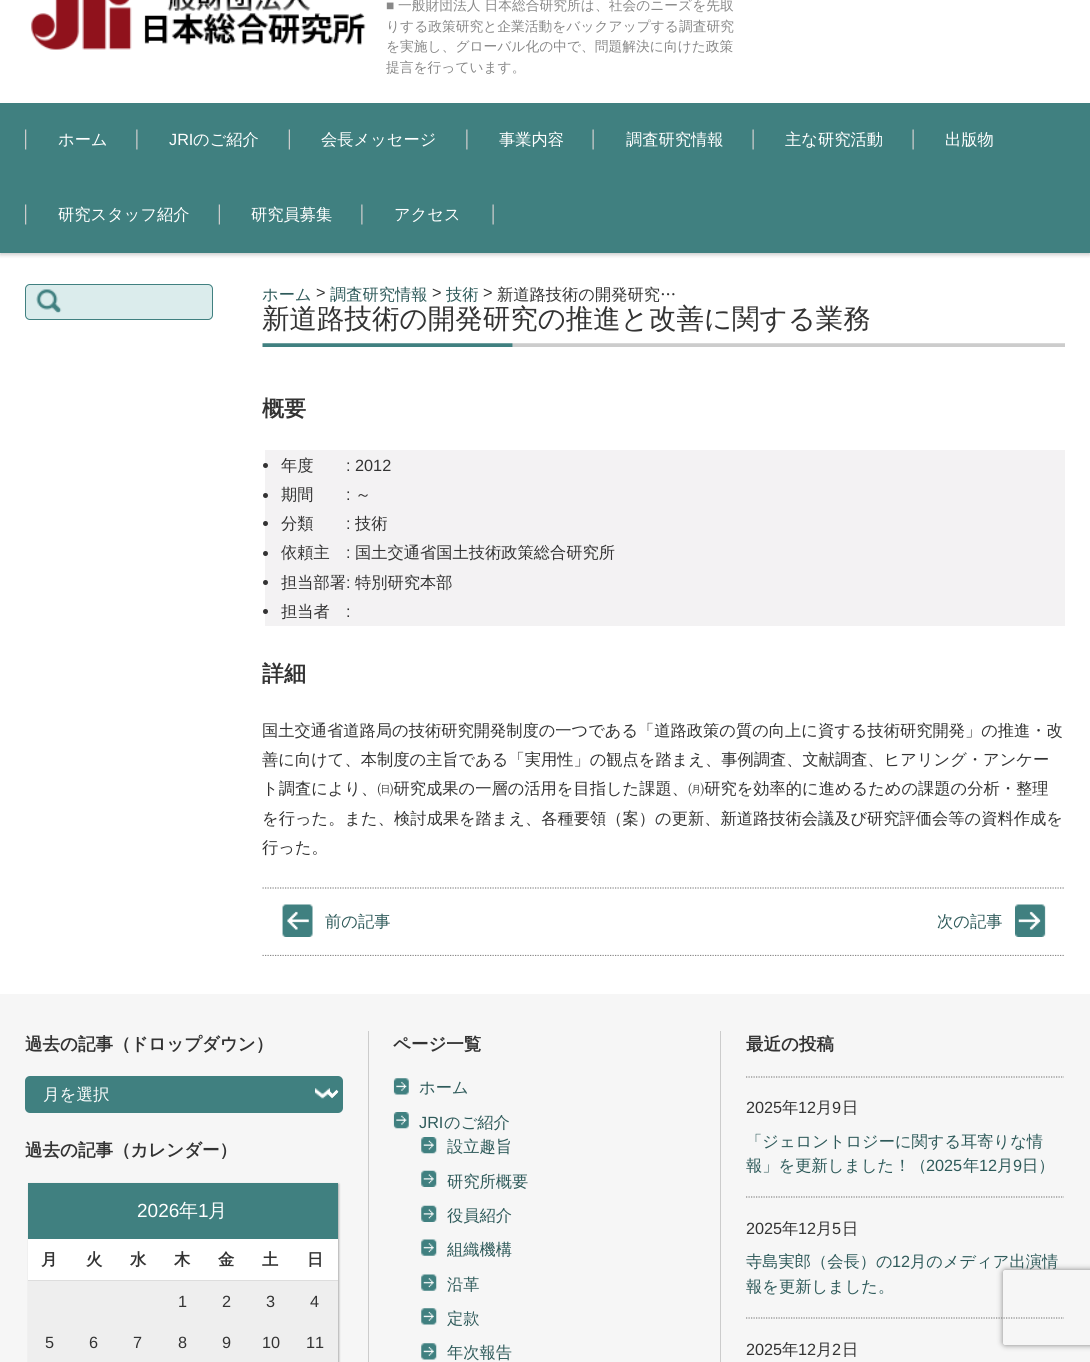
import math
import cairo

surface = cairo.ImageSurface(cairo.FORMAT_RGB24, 1090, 1362)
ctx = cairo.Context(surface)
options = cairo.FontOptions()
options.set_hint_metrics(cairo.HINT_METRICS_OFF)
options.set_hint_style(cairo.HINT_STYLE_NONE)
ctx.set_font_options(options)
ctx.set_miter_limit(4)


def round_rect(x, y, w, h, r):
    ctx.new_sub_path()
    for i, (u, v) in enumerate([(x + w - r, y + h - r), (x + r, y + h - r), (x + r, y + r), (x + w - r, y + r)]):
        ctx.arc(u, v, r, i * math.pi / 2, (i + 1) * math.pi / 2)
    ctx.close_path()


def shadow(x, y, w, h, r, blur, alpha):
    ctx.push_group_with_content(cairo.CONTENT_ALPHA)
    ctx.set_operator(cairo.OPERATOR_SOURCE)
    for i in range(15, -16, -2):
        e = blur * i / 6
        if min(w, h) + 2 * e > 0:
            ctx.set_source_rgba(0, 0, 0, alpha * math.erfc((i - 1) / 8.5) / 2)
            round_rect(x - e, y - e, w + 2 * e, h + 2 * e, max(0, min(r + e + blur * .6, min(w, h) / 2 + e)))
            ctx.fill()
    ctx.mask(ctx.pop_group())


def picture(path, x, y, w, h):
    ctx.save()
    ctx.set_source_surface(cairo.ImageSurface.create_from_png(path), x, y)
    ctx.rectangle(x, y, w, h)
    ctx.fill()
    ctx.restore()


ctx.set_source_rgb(1, 1, 1)
ctx.paint()
ctx.set_source_rgb(0, 0, 0)
shadow(0, 105, 1090, 150, 0, 2, 0.2)
ctx.set_source_rgb(1, 1, 1)
ctx.rectangle(0, 102, 1090, 1)
ctx.fill()
picture("img1.png", 31, 0, 335, 50)
ctx.select_font_face("Liberation Sans")
ctx.set_font_size(13.75)
ctx.set_source_rgb(0.533, 0.533, 0.533)
ctx.move_to(386, 10)
ctx.show_text("■")
ctx.select_font_face("WenQuanYi Zen Hei Medium")
ctx.move_to(398, 10)
ctx.show_text("一般財団法人 日本総合研究所は、社会のニーズを先取")
ctx.move_to(386, 31)
ctx.show_text("りする政策研究と企業活動をバックアップする調査研究")
ctx.move_to(386, 51)
ctx.show_text("を実施し、グローバル化の中で、問題解決に向けた政策")
ctx.move_to(386, 72)
ctx.show_text("提言を行っています。")
ctx.set_source_rgb(0.251, 0.502, 0.502)
ctx.rectangle(0, 103, 1090, 150)
ctx.fill()
picture("img2.png", 25, 129, 2, 21)
ctx.set_font_size(16.25)
ctx.set_source_rgb(1, 1, 1)
ctx.move_to(58, 145)
ctx.show_text("ホーム")
picture("img3.png", 136, 129, 2, 21)
ctx.select_font_face("Liberation Sans")
ctx.move_to(169, 145)
ctx.show_text("JRI")
ctx.select_font_face("WenQuanYi Zen Hei Medium")
ctx.move_to(193, 145)
ctx.show_text("のご紹介")
picture("img4.png", 288, 129, 2, 21)
ctx.move_to(321, 145)
ctx.show_text("会長メッセージ")
picture("img3.png", 466, 129, 2, 21)
ctx.move_to(499, 145)
ctx.show_text("事業内容")
picture("img5.png", 592, 129, 2, 21)
ctx.move_to(626, 145)
ctx.show_text("調査研究情報")
picture("img5.png", 752, 129, 2, 21)
ctx.move_to(785, 145)
ctx.show_text("主な研究活動")
picture("img5.png", 912, 129, 2, 21)
ctx.move_to(945, 145)
ctx.show_text("出版物")
picture("img2.png", 25, 204, 2, 21)
ctx.move_to(58, 220)
ctx.show_text("研究スタッフ紹介")
picture("img4.png", 218, 204, 2, 21)
ctx.move_to(251, 220)
ctx.show_text("研究員募集")
picture("img6.png", 361, 204, 133, 21)
ctx.move_to(394, 220)
ctx.show_text("アクセス")
ctx.set_source_rgb(0.859, 0.925, 0.925)
round_rect(25, 284, 188, 36, 5)
ctx.fill()
picture("img7.png", 36, 289, 26, 24)
round_rect(25.5, 284.5, 187, 35, 4.5)
ctx.set_source_rgb(0.251, 0.502, 0.502)
ctx.set_line_width(1)
ctx.stroke()
ctx.set_source_rgb(0.18, 0.353, 0.353)
ctx.move_to(262, 300)
ctx.show_text("ホーム")
ctx.select_font_face("Liberation Sans")
ctx.set_source_rgb(0.2, 0.2, 0.2)
ctx.move_to(316, 298)
ctx.show_text(">")
ctx.select_font_face("WenQuanYi Zen Hei Medium")
ctx.set_source_rgb(0.18, 0.353, 0.353)
ctx.move_to(330, 300)
ctx.show_text("調査研究情報")
ctx.select_font_face("Liberation Sans")
ctx.set_source_rgb(0.2, 0.2, 0.2)
ctx.move_to(432, 298)
ctx.show_text(">")
ctx.select_font_face("WenQuanYi Zen Hei Medium")
ctx.set_source_rgb(0.18, 0.353, 0.353)
ctx.move_to(446, 300)
ctx.show_text("技術")
ctx.select_font_face("Liberation Sans")
ctx.set_source_rgb(0.2, 0.2, 0.2)
ctx.move_to(483, 298)
ctx.show_text(">")
ctx.select_font_face("WenQuanYi Zen Hei Medium")
ctx.move_to(497, 300)
ctx.show_text("新道路技術の開発研究…")
picture("img8.png", 262, 343, 803, 4)
ctx.set_font_size(27.5)
ctx.move_to(262, 328)
ctx.show_text("新道路技術の開発研究の推進と改善に関する業務")
ctx.select_font_face("WenQuanYi Zen Hei", cairo.FONT_SLANT_NORMAL, cairo.FONT_WEIGHT_BOLD)
ctx.set_font_size(22)
ctx.move_to(262, 416)
ctx.show_text("概要")
ctx.set_source_rgb(0.953, 0.949, 0.953)
ctx.rectangle(265, 450, 800, 176)
ctx.fill()
ctx.set_source_rgb(0.2, 0.2, 0.2)
ctx.arc(265.5, 465.5, 2.5, 0, 2 * math.pi)
ctx.fill()
ctx.select_font_face("WenQuanYi Zen Hei Medium")
ctx.set_font_size(16.25)
ctx.move_to(281, 471)
ctx.show_text("年度")
ctx.select_font_face("Liberation Sans")
ctx.move_to(346, 471)
ctx.show_text(": 2012")
ctx.new_path()
ctx.arc(265.5, 495.5, 2.5, 0, 2 * math.pi)
ctx.fill()
ctx.select_font_face("WenQuanYi Zen Hei Medium")
ctx.move_to(281, 500)
ctx.show_text("期間")
ctx.select_font_face("Liberation Sans")
ctx.move_to(346, 500)
ctx.show_text(":")
ctx.select_font_face("WenQuanYi Zen Hei Medium")
ctx.move_to(355, 500)
ctx.show_text("～")
ctx.new_path()
ctx.arc(265.5, 523.5, 2.5, 0, 2 * math.pi)
ctx.fill()
ctx.move_to(281, 529)
ctx.show_text("分類")
ctx.select_font_face("Liberation Sans")
ctx.move_to(346, 529)
ctx.show_text(":")
ctx.select_font_face("WenQuanYi Zen Hei Medium")
ctx.move_to(355, 529)
ctx.show_text("技術")
ctx.new_path()
ctx.arc(265.5, 553.5, 2.5, 0, 2 * math.pi)
ctx.fill()
ctx.move_to(281, 558)
ctx.show_text("依頼主")
ctx.select_font_face("Liberation Sans")
ctx.move_to(346, 558)
ctx.show_text(":")
ctx.select_font_face("WenQuanYi Zen Hei Medium")
ctx.move_to(355, 558)
ctx.show_text("国土交通省国土技術政策総合研究所")
ctx.new_path()
ctx.arc(265.5, 582.5, 2.5, 0, 2 * math.pi)
ctx.fill()
ctx.move_to(281, 588)
ctx.show_text("担当部署")
ctx.select_font_face("Liberation Sans")
ctx.move_to(346, 588)
ctx.show_text(":")
ctx.select_font_face("WenQuanYi Zen Hei Medium")
ctx.move_to(355, 588)
ctx.show_text("特別研究本部")
ctx.new_path()
ctx.arc(265.5, 611.5, 2.5, 0, 2 * math.pi)
ctx.fill()
ctx.move_to(281, 617)
ctx.show_text("担当者")
ctx.select_font_face("Liberation Sans")
ctx.move_to(346, 617)
ctx.show_text(":")
ctx.select_font_face("WenQuanYi Zen Hei", cairo.FONT_SLANT_NORMAL, cairo.FONT_WEIGHT_BOLD)
ctx.set_font_size(22)
ctx.move_to(262, 681)
ctx.show_text("詳細")
ctx.select_font_face("WenQuanYi Zen Hei Medium")
ctx.set_font_size(16.25)
ctx.move_to(262, 736)
ctx.show_text("国土交通省道路局の技術研究開発制度の一つである「道路政策の質の向上に資する技術研究開発」の推進・改")
ctx.move_to(262, 765)
ctx.show_text("善に向けて、本制度の主旨である「実用性」の観点を踏まえ、事例調査、文献調査、ヒアリング・アンケー")
ctx.move_to(262, 794)
ctx.show_text("ト調査により、㈰研究成果の一層の活用を目指した課題、㈪研究を効率的に進めるための課題の分析・整理")
ctx.move_to(262, 824)
ctx.show_text("を行った。また、検討成果を踏まえ、各種要領（案）の更新、新道路技術会議及び研究評価会等の資料作成を")
ctx.move_to(262, 853)
ctx.show_text("行った。")
ctx.new_path()
ctx.move_to(262.5, 888)
ctx.line_to(1065, 888)
ctx.set_source_rgb(0.533, 0.533, 0.533)
ctx.set_line_width(1.2)
ctx.set_dash([1.25, 1.25])
ctx.stroke()
ctx.save()
ctx.rectangle(213, 284, 852, 672)
ctx.clip()
ctx.new_path()
ctx.move_to(262.5, 955.5)
ctx.line_to(1065, 955.5)
ctx.stroke()
ctx.restore()
picture("img9.png", 282, 904, 31, 33)
ctx.set_source_rgb(0.18, 0.353, 0.353)
ctx.move_to(325, 927)
ctx.show_text("前の記事")
picture("img10.png", 1015, 904, 31, 33)
ctx.move_to(937, 927)
ctx.show_text("次の記事")
ctx.set_source_rgb(0.961, 0.961, 0.961)
ctx.rectangle(0, 994, 1090, 368)
ctx.fill()
ctx.set_source_rgb(0.8, 0.8, 0.8)
ctx.rectangle(368, 1031, 1, 331)
ctx.fill()
ctx.select_font_face("WenQuanYi Zen Hei", cairo.FONT_SLANT_NORMAL, cairo.FONT_WEIGHT_BOLD)
ctx.set_font_size(17.5)
ctx.set_source_rgb(0.2, 0.2, 0.2)
ctx.move_to(25, 1050)
ctx.show_text("過去の記事（ドロップダウン）")
ctx.set_source_rgb(0.251, 0.502, 0.502)
round_rect(25, 1076, 318, 37, 5)
ctx.fill()
picture("img11.png", 315, 1088, 24, 11)
ctx.new_path()
ctx.move_to(327, 1091.5)
ctx.line_to(332, 1096.5)
ctx.line_to(337, 1091.5)
ctx.set_source_rgb(1, 1, 1)
ctx.set_line_width(2.5)
ctx.set_dash([])
ctx.stroke()
ctx.select_font_face("WenQuanYi Zen Hei Medium")
ctx.set_font_size(16.5)
ctx.move_to(43, 1100)
ctx.show_text("月を選択")
ctx.select_font_face("WenQuanYi Zen Hei", cairo.FONT_SLANT_NORMAL, cairo.FONT_WEIGHT_BOLD)
ctx.set_font_size(17.5)
ctx.set_source_rgb(0.2, 0.2, 0.2)
ctx.move_to(25, 1156)
ctx.show_text("過去の記事（カレンダー）")
ctx.set_source_rgb(0, 0, 0)
shadow(29, 1184, 310, 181, 0, 1, 0.3)
ctx.set_source_rgb(0.251, 0.502, 0.502)
ctx.rectangle(28, 1183, 310, 56)
ctx.fill()
ctx.select_font_face("Liberation Sans")
ctx.set_font_size(19)
ctx.set_source_rgb(1, 1, 1)
ctx.move_to(137, 1217)
ctx.show_text("2026")
ctx.select_font_face("WenQuanYi Zen Hei Medium")
ctx.move_to(179, 1217)
ctx.show_text("年")
ctx.select_font_face("Liberation Sans")
ctx.move_to(198, 1217)
ctx.show_text("1")
ctx.select_font_face("WenQuanYi Zen Hei Medium")
ctx.move_to(208, 1217)
ctx.show_text("月")
ctx.rectangle(28, 1239, 310, 41)
ctx.fill()
ctx.select_font_face("WenQuanYi Zen Hei", cairo.FONT_SLANT_NORMAL, cairo.FONT_WEIGHT_BOLD)
ctx.set_font_size(16.25)
ctx.set_source_rgb(0.2, 0.2, 0.2)
ctx.move_to(41, 1265)
ctx.show_text("月")
ctx.move_to(86, 1265)
ctx.show_text("火")
ctx.move_to(130, 1265)
ctx.show_text("水")
ctx.move_to(174, 1265)
ctx.show_text("木")
ctx.move_to(218, 1265)
ctx.show_text("金")
ctx.move_to(262, 1265)
ctx.show_text("土")
ctx.set_source_rgb(0.867, 0.867, 0.867)
ctx.rectangle(28, 1280, 310, 1)
ctx.fill()
ctx.set_source_rgb(0.2, 0.2, 0.2)
ctx.move_to(307, 1265)
ctx.show_text("日")
ctx.set_source_rgb(0.933, 0.933, 0.933)
ctx.rectangle(28, 1281, 310, 42)
ctx.fill()
ctx.select_font_face("Liberation Sans")
ctx.set_source_rgb(0.2, 0.2, 0.2)
ctx.move_to(178, 1307)
ctx.show_text("1")
ctx.move_to(222, 1307)
ctx.show_text("2")
ctx.move_to(266, 1307)
ctx.show_text("3")
ctx.move_to(310, 1307)
ctx.show_text("4")
ctx.set_source_rgb(0.933, 0.933, 0.933)
ctx.rectangle(28, 1323, 310, 39)
ctx.fill()
ctx.set_source_rgb(0.2, 0.2, 0.2)
ctx.move_to(45, 1348)
ctx.show_text("5")
ctx.move_to(89, 1348)
ctx.show_text("6")
ctx.move_to(133, 1348)
ctx.show_text("7")
ctx.move_to(178, 1348)
ctx.show_text("8")
ctx.move_to(222, 1348)
ctx.show_text("9")
ctx.move_to(262, 1348)
ctx.show_text("10")
ctx.move_to(306, 1348)
ctx.show_text("11")
ctx.set_source_rgb(0.8, 0.8, 0.8)
ctx.rectangle(720, 1031, 1, 331)
ctx.fill()
ctx.select_font_face("WenQuanYi Zen Hei", cairo.FONT_SLANT_NORMAL, cairo.FONT_WEIGHT_BOLD)
ctx.set_font_size(17.5)
ctx.set_source_rgb(0.2, 0.2, 0.2)
ctx.move_to(393, 1050)
ctx.show_text("ページ一覧")
picture("img12.png", 393, 1078, 16, 17)
ctx.select_font_face("WenQuanYi Zen Hei Medium")
ctx.set_font_size(16.25)
ctx.set_source_rgb(0.18, 0.353, 0.353)
ctx.move_to(419, 1093)
ctx.show_text("ホーム")
picture("img13.png", 393, 1112, 16, 17)
ctx.select_font_face("Liberation Sans")
ctx.move_to(419, 1128)
ctx.show_text("JRI")
ctx.select_font_face("WenQuanYi Zen Hei Medium")
ctx.move_to(444, 1128)
ctx.show_text("のご紹介")
picture("img14.png", 421, 1137, 16, 17)
ctx.move_to(447, 1152)
ctx.show_text("設立趣旨")
picture("img15.png", 421, 1170, 16, 17)
ctx.move_to(447, 1187)
ctx.show_text("研究所概要")
picture("img15.png", 421, 1205, 16, 17)
ctx.move_to(447, 1221)
ctx.show_text("役員紹介")
picture("img16.png", 421, 1239, 16, 17)
ctx.move_to(447, 1255)
ctx.show_text("組織機構")
picture("img16.png", 421, 1274, 16, 17)
ctx.move_to(447, 1290)
ctx.show_text("沿革")
picture("img17.png", 421, 1308, 16, 17)
ctx.move_to(447, 1324)
ctx.show_text("定款")
picture("img17.png", 421, 1343, 16, 17)
ctx.move_to(447, 1358)
ctx.show_text("年次報告")
ctx.select_font_face("WenQuanYi Zen Hei", cairo.FONT_SLANT_NORMAL, cairo.FONT_WEIGHT_BOLD)
ctx.set_font_size(17.5)
ctx.set_source_rgb(0.2, 0.2, 0.2)
ctx.move_to(746, 1050)
ctx.show_text("最近の投稿")
ctx.new_path()
ctx.move_to(746, 1077)
ctx.line_to(1064, 1077)
ctx.set_source_rgb(0.533, 0.533, 0.533)
ctx.set_line_width(1.2)
ctx.set_dash([1.25, 1.25])
ctx.stroke()
ctx.new_path()
ctx.move_to(746, 1197)
ctx.line_to(1064, 1197)
ctx.stroke()
ctx.select_font_face("Liberation Sans")
ctx.set_font_size(16.25)
ctx.set_source_rgb(0.2, 0.2, 0.2)
ctx.move_to(746, 1113)
ctx.show_text("2025")
ctx.select_font_face("WenQuanYi Zen Hei Medium")
ctx.move_to(782, 1113)
ctx.show_text("年")
ctx.select_font_face("Liberation Sans")
ctx.move_to(798, 1113)
ctx.show_text("12")
ctx.select_font_face("WenQuanYi Zen Hei Medium")
ctx.move_to(816, 1113)
ctx.show_text("月")
ctx.select_font_face("Liberation Sans")
ctx.move_to(832, 1113)
ctx.show_text("9")
ctx.select_font_face("WenQuanYi Zen Hei Medium")
ctx.move_to(842, 1113)
ctx.show_text("日")
ctx.set_source_rgb(0.18, 0.353, 0.353)
ctx.move_to(746, 1147)
ctx.show_text("「ジェロントロジーに関する耳寄りな情")
ctx.move_to(746, 1171)
ctx.show_text("報」を更新しました！（")
ctx.select_font_face("Liberation Sans")
ctx.move_to(926, 1171)
ctx.show_text("2025")
ctx.select_font_face("WenQuanYi Zen Hei Medium")
ctx.move_to(963, 1171)
ctx.show_text("年")
ctx.select_font_face("Liberation Sans")
ctx.move_to(979, 1171)
ctx.show_text("12")
ctx.select_font_face("WenQuanYi Zen Hei Medium")
ctx.move_to(997, 1171)
ctx.show_text("月")
ctx.select_font_face("Liberation Sans")
ctx.move_to(1013, 1171)
ctx.show_text("9")
ctx.select_font_face("WenQuanYi Zen Hei Medium")
ctx.move_to(1022, 1171)
ctx.show_text("日）")
ctx.new_path()
ctx.move_to(746, 1318)
ctx.line_to(1064, 1318)
ctx.set_source_rgb(0.533, 0.533, 0.533)
ctx.stroke()
ctx.select_font_face("Liberation Sans")
ctx.set_source_rgb(0.2, 0.2, 0.2)
ctx.move_to(746, 1234)
ctx.show_text("2025")
ctx.select_font_face("WenQuanYi Zen Hei Medium")
ctx.move_to(782, 1234)
ctx.show_text("年")
ctx.select_font_face("Liberation Sans")
ctx.move_to(798, 1234)
ctx.show_text("12")
ctx.select_font_face("WenQuanYi Zen Hei Medium")
ctx.move_to(816, 1234)
ctx.show_text("月")
ctx.select_font_face("Liberation Sans")
ctx.move_to(832, 1234)
ctx.show_text("5")
ctx.select_font_face("WenQuanYi Zen Hei Medium")
ctx.move_to(842, 1234)
ctx.show_text("日")
ctx.set_source_rgb(0.18, 0.353, 0.353)
ctx.move_to(746, 1267)
ctx.show_text("寺島実郎（会長）の")
ctx.select_font_face("Liberation Sans")
ctx.move_to(892, 1267)
ctx.show_text("12")
ctx.select_font_face("WenQuanYi Zen Hei Medium")
ctx.move_to(910, 1267)
ctx.show_text("月のメディア出演情")
ctx.move_to(746, 1292)
ctx.show_text("報を更新しました。")
ctx.select_font_face("Liberation Sans")
ctx.set_source_rgb(0.2, 0.2, 0.2)
ctx.move_to(746, 1355)
ctx.show_text("2025")
ctx.select_font_face("WenQuanYi Zen Hei Medium")
ctx.move_to(782, 1355)
ctx.show_text("年")
ctx.select_font_face("Liberation Sans")
ctx.move_to(798, 1355)
ctx.show_text("12")
ctx.select_font_face("WenQuanYi Zen Hei Medium")
ctx.move_to(816, 1355)
ctx.show_text("月")
ctx.select_font_face("Liberation Sans")
ctx.move_to(832, 1355)
ctx.show_text("2")
ctx.select_font_face("WenQuanYi Zen Hei Medium")
ctx.move_to(842, 1355)
ctx.show_text("日")
ctx.save()
ctx.set_fill_rule(cairo.FILL_RULE_EVEN_ODD)
ctx.new_path()
ctx.move_to(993, 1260)
ctx.line_to(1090, 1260)
ctx.line_to(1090, 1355)
ctx.line_to(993, 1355)
ctx.close_path()
ctx.move_to(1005.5, 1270)
ctx.line_to(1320.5, 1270)
ctx.curve_to(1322, 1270, 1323, 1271, 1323, 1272.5)
ctx.line_to(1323, 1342.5)
ctx.curve_to(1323, 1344, 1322, 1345, 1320.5, 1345)
ctx.line_to(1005.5, 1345)
ctx.curve_to(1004, 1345, 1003, 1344, 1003, 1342.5)
ctx.line_to(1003, 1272.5)
ctx.curve_to(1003, 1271, 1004, 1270, 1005.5, 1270)
ctx.close_path()
ctx.clip()
ctx.set_source_rgb(0.502, 0.502, 0.502)
shadow(1003, 1270, 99, 75, 2.5, 3, 1)
ctx.restore()
surface.write_to_png("page.png")
